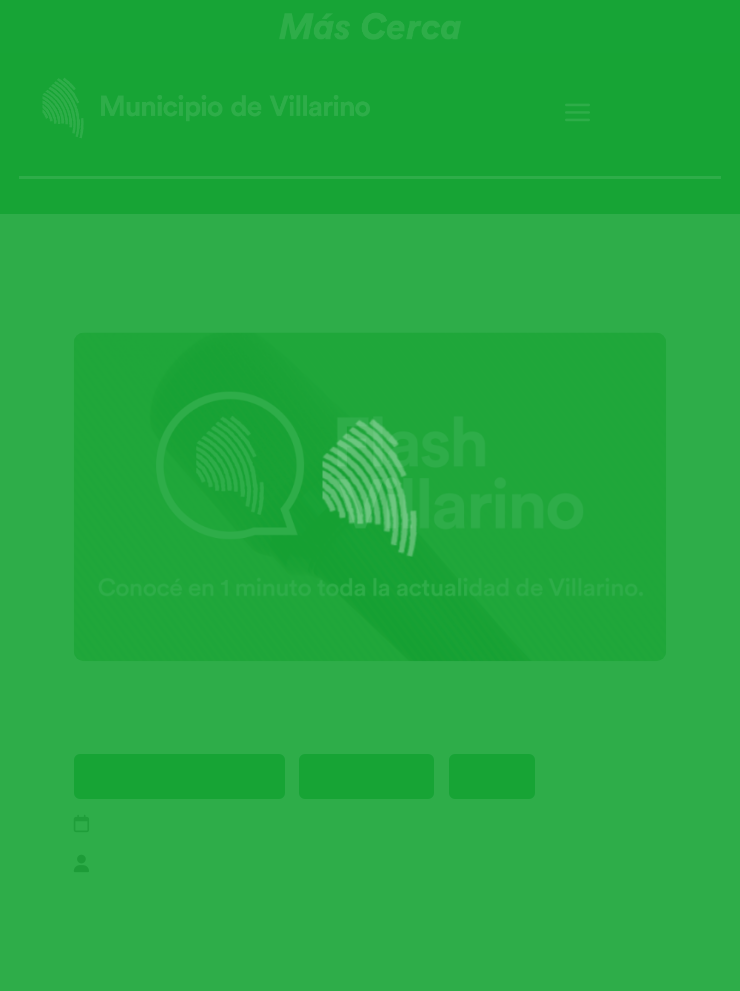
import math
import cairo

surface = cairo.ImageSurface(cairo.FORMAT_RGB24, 740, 991)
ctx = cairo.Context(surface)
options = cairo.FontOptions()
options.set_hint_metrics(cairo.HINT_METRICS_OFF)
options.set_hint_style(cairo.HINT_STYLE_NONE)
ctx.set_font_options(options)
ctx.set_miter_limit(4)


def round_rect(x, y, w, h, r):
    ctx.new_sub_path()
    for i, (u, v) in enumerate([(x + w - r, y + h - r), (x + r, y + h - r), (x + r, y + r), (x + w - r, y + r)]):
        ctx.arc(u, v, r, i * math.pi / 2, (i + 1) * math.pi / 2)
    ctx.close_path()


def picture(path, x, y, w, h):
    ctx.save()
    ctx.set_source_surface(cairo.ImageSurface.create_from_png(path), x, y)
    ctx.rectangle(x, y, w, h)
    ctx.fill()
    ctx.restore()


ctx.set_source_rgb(1, 1, 1)
ctx.paint()
ctx.set_source_rgb(0.094, 0.643, 0.212)
ctx.rectangle(0, 53, 740, 161)
ctx.fill()
ctx.set_source_rgb(0.071, 0.643, 0.224)
ctx.rectangle(0, 0, 740, 53)
ctx.fill()
picture("img1.png", 279, 12, 183, 28)
ctx.set_source_rgb(1, 1, 1)
ctx.rectangle(19, 176, 702, 3)
ctx.fill()
picture("img2.png", 42, 77, 328, 62)
picture("img3.png", 565, 103, 25, 19)
picture("img4.png", 73, 332, 594, 330)
ctx.set_source_rgb(0.071, 0.651, 0.22)
round_rect(74, 754, 211, 45, 6)
ctx.fill()
round_rect(299, 754, 135, 45, 6)
ctx.fill()
round_rect(449, 754, 86, 45, 6)
ctx.fill()
picture("img5.png", 73, 814, 17, 19)
picture("img6.png", 73, 854, 16, 19)
ctx.set_source_rgba(0.094, 0.643, 0.212, 0.9)
ctx.rectangle(0, 0, 370, 991)
ctx.fill()
ctx.rectangle(370, 0, 370, 991)
ctx.fill()
picture("img7.png", 322, 418, 96, 139)
surface.write_to_png("page.png")
